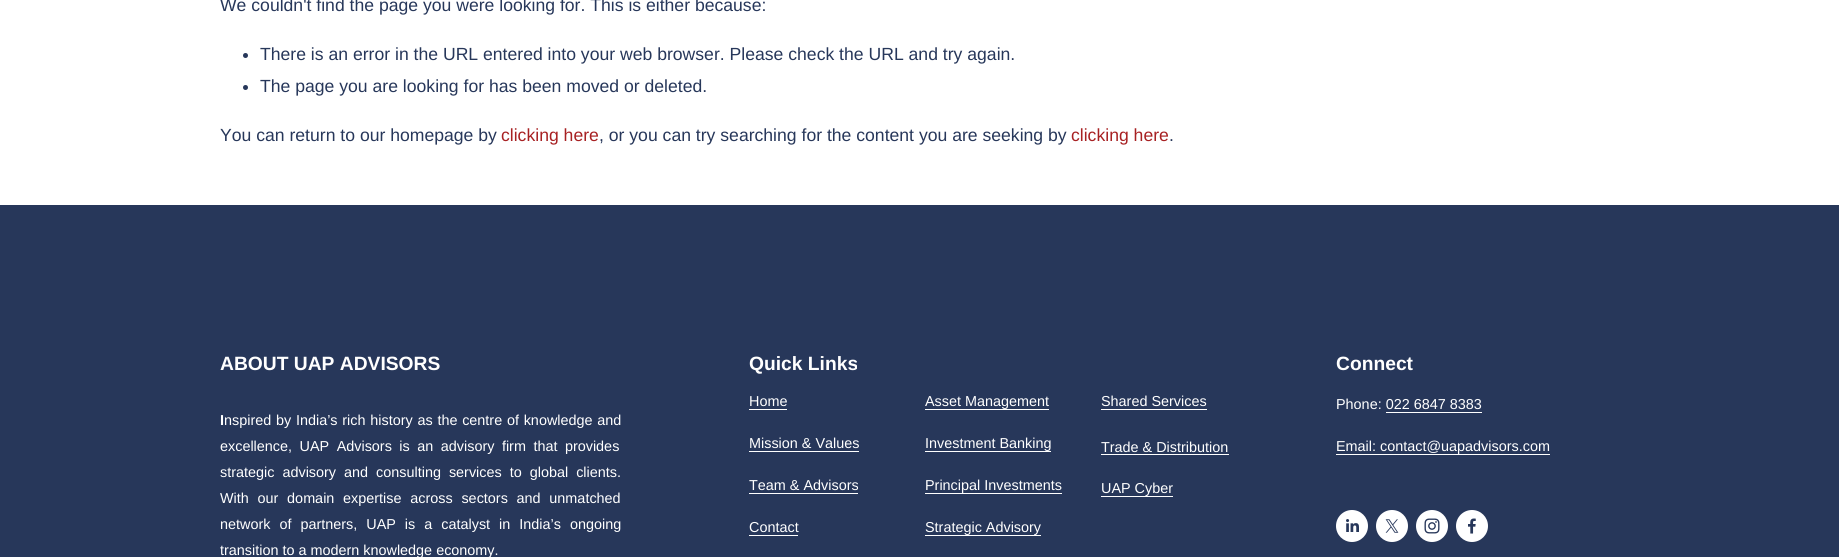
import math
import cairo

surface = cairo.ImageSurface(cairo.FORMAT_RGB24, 1839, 557)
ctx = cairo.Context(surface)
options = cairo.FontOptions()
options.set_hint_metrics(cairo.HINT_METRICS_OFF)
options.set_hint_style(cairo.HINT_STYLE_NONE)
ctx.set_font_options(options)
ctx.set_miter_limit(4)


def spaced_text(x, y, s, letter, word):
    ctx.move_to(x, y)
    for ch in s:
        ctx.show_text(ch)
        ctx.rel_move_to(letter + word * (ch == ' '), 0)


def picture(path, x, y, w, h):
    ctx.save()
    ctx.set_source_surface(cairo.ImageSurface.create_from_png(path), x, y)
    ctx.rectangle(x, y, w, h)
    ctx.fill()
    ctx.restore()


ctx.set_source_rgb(1, 1, 1)
ctx.paint()
ctx.select_font_face("Liberation Sans")
ctx.set_font_size(17.6)
ctx.set_source_rgb(0.153, 0.216, 0.353)
ctx.move_to(220, 11)
ctx.show_text("We couldn't find the page you were looking for. This is either because:")
ctx.new_path()
ctx.arc(245.5, 55.5, 2.5, 0, 2 * math.pi)
ctx.fill()
ctx.move_to(260, 60)
ctx.show_text("There is an error in the URL entered into your web browser. Please check the URL and try again.")
ctx.new_path()
ctx.arc(245.5, 87.5, 2.5, 0, 2 * math.pi)
ctx.fill()
ctx.move_to(260, 92)
ctx.show_text("The page you are looking for has been moved or deleted.")
ctx.move_to(220, 141)
ctx.show_text("You can return to our homepage by")
ctx.set_source_rgb(0.655, 0.125, 0.133)
ctx.move_to(501, 141)
ctx.show_text("clicking here")
ctx.set_source_rgb(0.153, 0.216, 0.353)
ctx.move_to(599, 141)
ctx.show_text(", or you can try searching for the content you are seeking by")
ctx.set_source_rgb(0.655, 0.125, 0.133)
ctx.move_to(1071, 141)
ctx.show_text("clicking here")
ctx.set_source_rgb(0.153, 0.216, 0.353)
ctx.move_to(1169, 141)
ctx.show_text(".")
ctx.rectangle(0, 205, 1839, 352)
ctx.fill()
ctx.select_font_face("Liberation Sans", cairo.FONT_SLANT_NORMAL, cairo.FONT_WEIGHT_BOLD)
ctx.set_font_size(19.25)
ctx.set_source_rgb(1, 1, 1)
ctx.move_to(220, 370)
ctx.show_text("ABOUT UAP ADVISORS")
ctx.move_to(749, 370)
ctx.show_text("Quick Links")
ctx.move_to(1336, 370)
ctx.show_text("Connect")
ctx.set_font_size(14.4)
ctx.move_to(220, 425)
ctx.show_text("I")
ctx.select_font_face("Liberation Sans")
spaced_text(224, 425, "nspired by India’s rich history as the centre of knowledge and", 0, 0.75)
spaced_text(220, 451, "excellence, UAP Advisors is an advisory firm that provides", 0, 3.5)
spaced_text(220, 477, "strategic advisory and consulting services to global clients.", 0, 4)
spaced_text(220, 503, "With our domain expertise across sectors and unmatched", 0, 4.75)
spaced_text(220, 529, "network of partners, UAP is a catalyst in India’s ongoing", 0, 5)
ctx.move_to(220, 555)
ctx.show_text("transition to a modern knowledge economy.")
ctx.move_to(749, 406)
ctx.show_text("Home")
ctx.rectangle(749, 409, 38, 1)
ctx.fill()
ctx.move_to(749, 448)
ctx.show_text("Mission & Values")
ctx.rectangle(749, 451, 110, 1)
ctx.fill()
ctx.move_to(749, 490)
ctx.show_text("Team & Advisors")
ctx.rectangle(749, 493, 109, 1)
ctx.fill()
ctx.move_to(749, 532)
ctx.show_text("Contact")
ctx.rectangle(749, 535, 49, 1)
ctx.fill()
ctx.move_to(925, 406)
ctx.show_text("Asset Management")
ctx.rectangle(925, 409, 124, 1)
ctx.fill()
ctx.move_to(925, 448)
ctx.show_text("Investment Banking")
ctx.rectangle(925, 451, 126, 1)
ctx.fill()
ctx.move_to(925, 490)
ctx.show_text("Principal Investments")
ctx.rectangle(925, 493, 137, 1)
ctx.fill()
ctx.move_to(925, 532)
ctx.show_text("Strategic Advisory")
ctx.rectangle(925, 535, 116, 1)
ctx.fill()
ctx.move_to(1101, 406)
ctx.show_text("Shared Services")
ctx.rectangle(1101, 409, 106, 1)
ctx.fill()
ctx.move_to(1101, 452)
ctx.show_text("Trade & Distribution")
ctx.rectangle(1101, 454, 128, 1)
ctx.fill()
ctx.move_to(1101, 493)
ctx.show_text("UAP Cyber")
ctx.rectangle(1101, 496, 72, 1)
ctx.fill()
ctx.move_to(1336, 409)
ctx.show_text("Phone: 022 6847 8383")
ctx.rectangle(1386, 412, 96, 1)
ctx.fill()
ctx.move_to(1336, 451)
ctx.show_text("Email: contact@uapadvisors.com")
ctx.rectangle(1336, 454, 214, 1)
ctx.fill()
ctx.arc(1352, 526, 16, 0, 2 * math.pi)
ctx.fill()
picture("img1.png", 1346, 519, 13, 13)
ctx.arc(1392, 526, 16, 0, 2 * math.pi)
ctx.fill()
picture("img2.png", 1385, 519, 14, 14)
ctx.arc(1432, 526, 16, 0, 2 * math.pi)
ctx.fill()
picture("img3.png", 1424, 518, 16, 16)
ctx.arc(1472, 526, 16, 0, 2 * math.pi)
ctx.fill()
picture("img4.png", 1468, 518, 8, 16)
surface.write_to_png("page.png")
